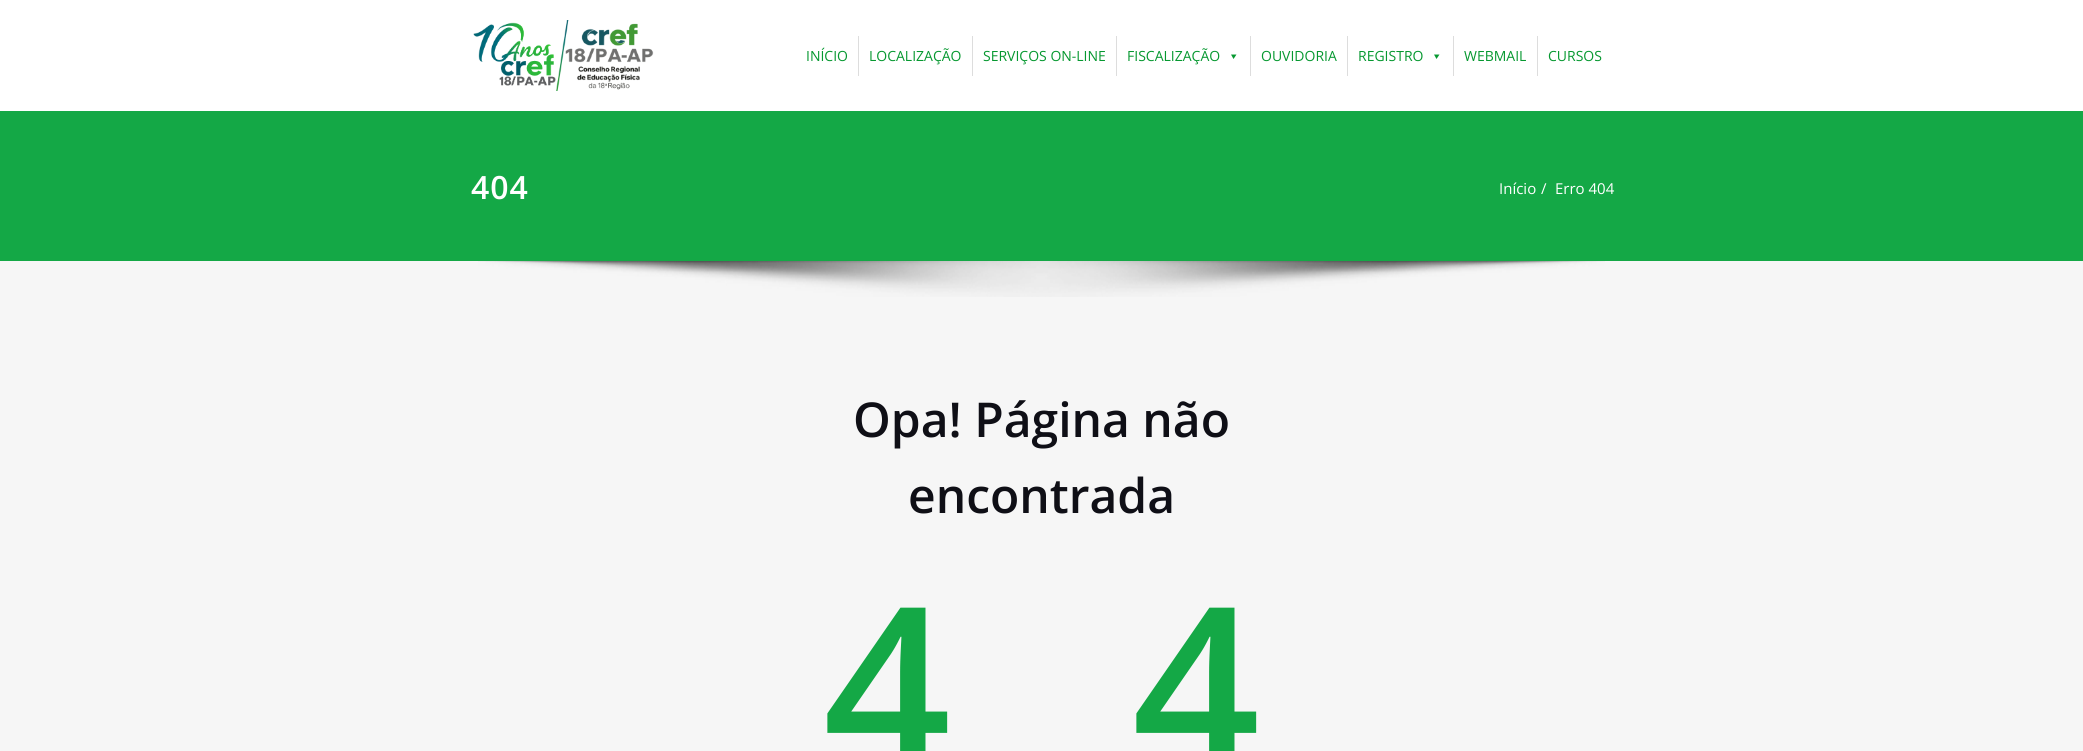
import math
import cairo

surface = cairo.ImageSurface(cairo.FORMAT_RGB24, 2083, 751)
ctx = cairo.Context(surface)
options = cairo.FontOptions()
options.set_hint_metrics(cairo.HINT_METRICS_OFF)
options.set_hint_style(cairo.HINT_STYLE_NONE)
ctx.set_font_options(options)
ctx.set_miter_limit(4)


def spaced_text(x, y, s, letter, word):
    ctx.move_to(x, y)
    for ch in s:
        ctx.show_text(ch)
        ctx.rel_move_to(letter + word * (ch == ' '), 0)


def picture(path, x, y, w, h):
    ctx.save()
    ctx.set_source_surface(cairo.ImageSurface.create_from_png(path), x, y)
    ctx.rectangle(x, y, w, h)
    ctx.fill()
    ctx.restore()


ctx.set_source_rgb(0.961, 0.961, 0.961)
ctx.paint()
ctx.set_source_rgb(1, 1, 1)
ctx.rectangle(0, 0, 2083, 111)
ctx.fill()
picture("img1.png", 473, 20, 181, 71)
ctx.select_font_face("Open Sans")
ctx.set_font_size(14)
ctx.set_source_rgb(0.027, 0.596, 0.188)
ctx.move_to(806, 61)
ctx.show_text("INÍCIO")
ctx.set_source_rgb(0.867, 0.867, 0.867)
ctx.rectangle(858, 36, 1, 40)
ctx.fill()
ctx.set_source_rgb(0.027, 0.596, 0.188)
ctx.move_to(869, 61)
ctx.show_text("LOCALIZAÇÃO")
ctx.set_source_rgb(0.867, 0.867, 0.867)
ctx.rectangle(972, 36, 1, 40)
ctx.fill()
ctx.set_source_rgb(0.027, 0.596, 0.188)
ctx.move_to(983, 61)
ctx.show_text("SERVIÇOS ON-LINE")
ctx.set_source_rgb(0.867, 0.867, 0.867)
ctx.rectangle(1116, 36, 1, 40)
ctx.fill()
ctx.set_source_rgb(0.027, 0.596, 0.188)
ctx.move_to(1127, 61)
ctx.show_text("FISCALIZAÇÃO")
ctx.new_path()
ctx.move_to(1236.5, 54.5)
ctx.line_to(1233.5, 59)
ctx.line_to(1231, 54.5)
ctx.close_path()
ctx.fill()
ctx.set_source_rgb(0.867, 0.867, 0.867)
ctx.rectangle(1250, 36, 1, 40)
ctx.fill()
ctx.set_source_rgb(0.027, 0.596, 0.188)
ctx.move_to(1261, 61)
ctx.show_text("OUVIDORIA")
ctx.set_source_rgb(0.867, 0.867, 0.867)
ctx.rectangle(1347, 36, 1, 40)
ctx.fill()
ctx.set_source_rgb(0.027, 0.596, 0.188)
ctx.move_to(1358, 61)
ctx.show_text("REGISTRO")
ctx.new_path()
ctx.move_to(1439.5, 54.5)
ctx.line_to(1436.5, 59)
ctx.line_to(1434, 54.5)
ctx.close_path()
ctx.fill()
ctx.set_source_rgb(0.867, 0.867, 0.867)
ctx.rectangle(1453, 36, 1, 40)
ctx.fill()
ctx.set_source_rgb(0.027, 0.596, 0.188)
ctx.move_to(1464, 61)
ctx.show_text("WEBMAIL")
ctx.set_source_rgb(0.867, 0.867, 0.867)
ctx.rectangle(1537, 36, 1, 40)
ctx.fill()
ctx.set_source_rgb(0.027, 0.596, 0.188)
ctx.move_to(1548, 61)
ctx.show_text("CURSOS")
ctx.set_source_rgb(0.082, 0.659, 0.275)
ctx.rectangle(0, 111, 2083, 150)
ctx.fill()
ctx.select_font_face("Open Sans SemiBold")
ctx.set_font_size(32)
ctx.set_source_rgb(1, 1, 1)
spaced_text(471, 199, "404", 1, 0)
ctx.select_font_face("Open Sans")
ctx.set_font_size(15)
ctx.move_to(1499, 194)
ctx.show_text("Início")
ctx.move_to(1541, 194)
ctx.show_text("/")
ctx.move_to(1555, 194)
ctx.show_text("Erro 404")
picture("img2.png", 478, 261, 1127, 36)
ctx.select_font_face("Open Sans SemiBold")
ctx.set_font_size(48)
ctx.set_source_rgb(0.059, 0.059, 0.086)
ctx.move_to(853, 437)
ctx.show_text("Opa! Página não")
ctx.move_to(908, 513)
ctx.show_text("encontrada")
ctx.set_font_size(224)
ctx.set_source_rgb(0.082, 0.659, 0.275)
ctx.move_to(823, 768)
ctx.show_text("4")
ctx.move_to(1132, 768)
ctx.show_text("4")
surface.write_to_png("page.png")
